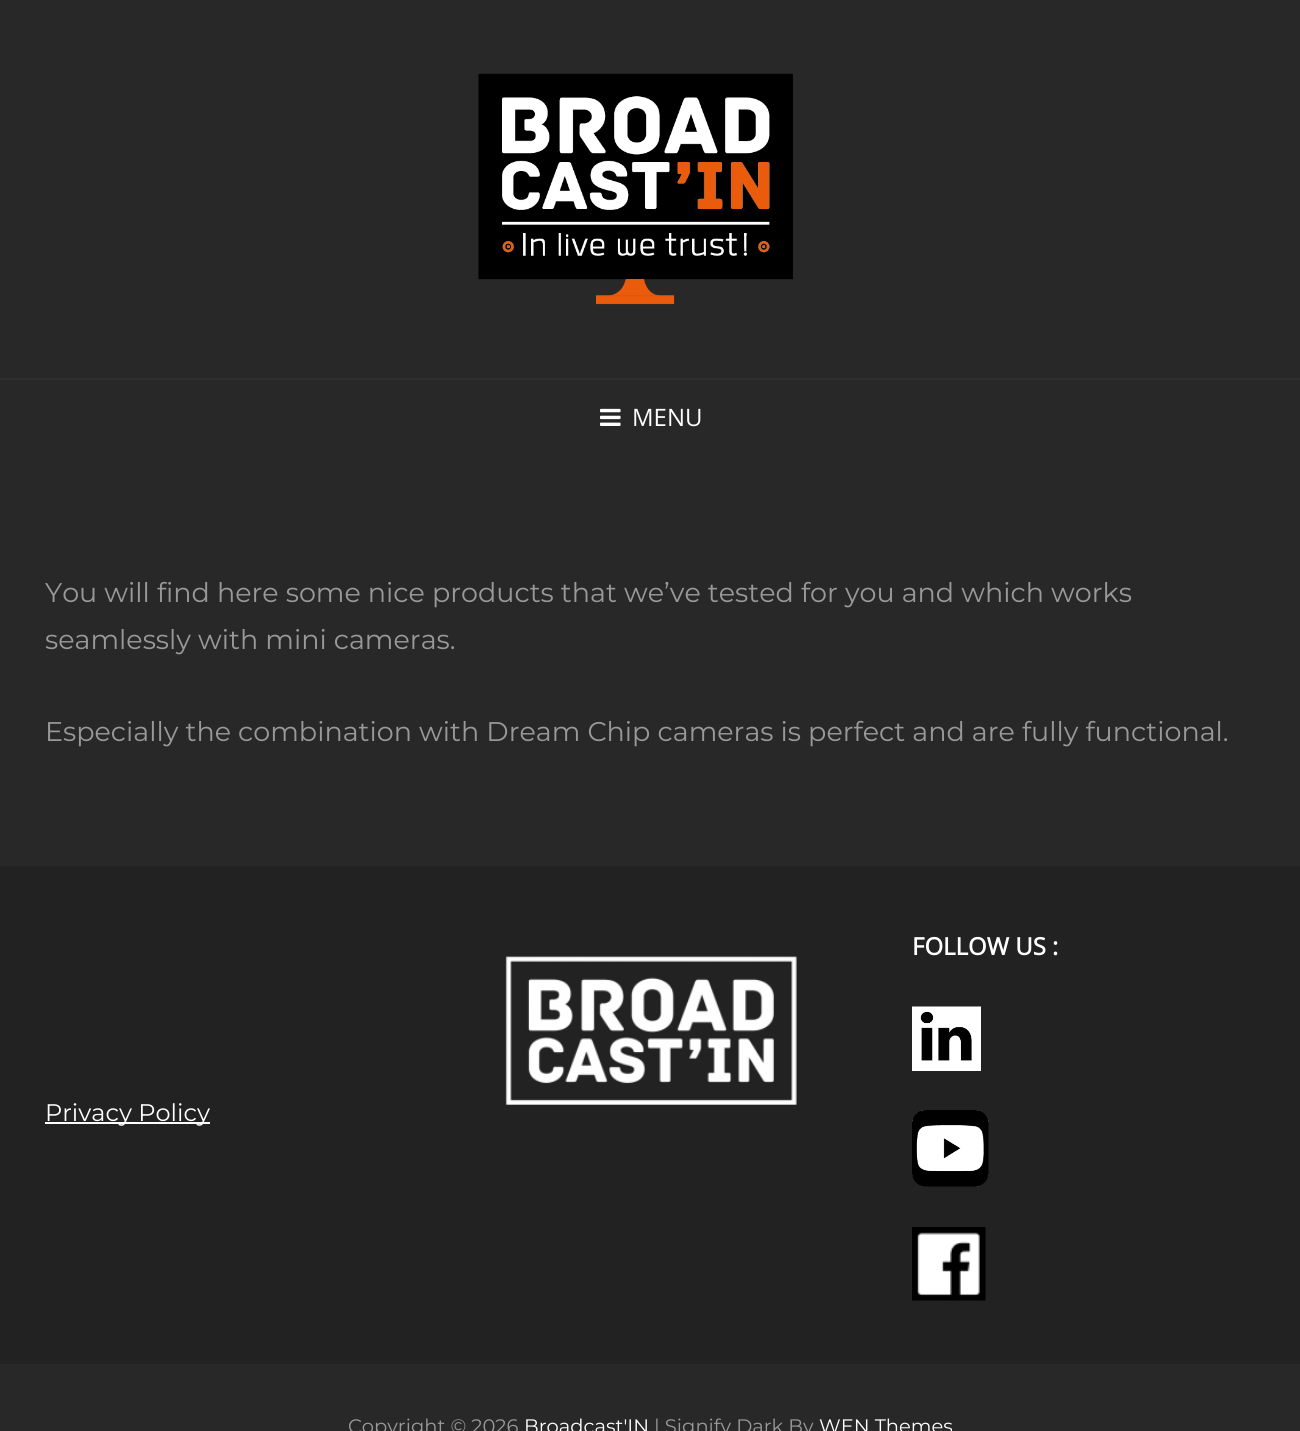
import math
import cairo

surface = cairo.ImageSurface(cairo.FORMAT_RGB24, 1300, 1431)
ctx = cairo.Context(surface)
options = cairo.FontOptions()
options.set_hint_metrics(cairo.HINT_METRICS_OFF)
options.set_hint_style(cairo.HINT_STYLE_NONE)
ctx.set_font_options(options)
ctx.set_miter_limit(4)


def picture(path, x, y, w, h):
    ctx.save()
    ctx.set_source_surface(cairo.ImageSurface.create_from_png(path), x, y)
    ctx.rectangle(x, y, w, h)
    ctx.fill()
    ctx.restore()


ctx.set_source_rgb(0.157, 0.157, 0.157)
ctx.paint()
picture("img1.png", 478, 73, 315, 232)
ctx.set_source_rgb(0.184, 0.184, 0.184)
ctx.rectangle(0, 378, 1300, 2)
ctx.fill()
picture("img2.png", 600, 408, 21, 18)
ctx.select_font_face("Open Sans")
ctx.set_font_size(24)
ctx.set_source_rgb(1, 1, 1)
ctx.move_to(632, 426)
ctx.show_text("MENU")
ctx.select_font_face("Montserrat Thin")
ctx.set_font_size(27)
ctx.set_source_rgb(0.6, 0.6, 0.6)
ctx.move_to(45, 602)
ctx.show_text("You will find here some nice products that we’ve tested for you and which works")
ctx.move_to(45, 649)
ctx.show_text("seamlessly with mini cameras.")
ctx.move_to(45, 741)
ctx.show_text("Especially the combination with Dream Chip cameras is perfect and are fully functional.")
ctx.set_source_rgb(0.133, 0.133, 0.133)
ctx.rectangle(0, 866, 1300, 498)
ctx.fill()
ctx.select_font_face("Open Sans", cairo.FONT_SLANT_NORMAL, cairo.FONT_WEIGHT_BOLD)
ctx.set_font_size(24)
ctx.set_source_rgb(1, 1, 1)
ctx.move_to(912, 955)
ctx.show_text("FOLLOW US :")
picture("img3.png", 912, 1006, 69, 65)
picture("img4.png", 912, 1110, 77, 77)
picture("img5.png", 912, 1227, 74, 74)
picture("img6.png", 505, 956, 292, 149)
ctx.rectangle(45, 1122, 165, 2)
ctx.fill()
ctx.select_font_face("Montserrat Thin")
ctx.move_to(45, 1121)
ctx.show_text("Privacy Policy")
ctx.set_font_size(19.5)
ctx.set_source_rgb(0.6, 0.6, 0.6)
ctx.move_to(348, 1433)
ctx.show_text("Copyright © 2026")
ctx.set_source_rgb(1, 1, 1)
ctx.move_to(524, 1433)
ctx.show_text("Broadcast'IN")
ctx.set_source_rgb(0.6, 0.6, 0.6)
ctx.move_to(654, 1433)
ctx.show_text("| Signify Dark By")
ctx.set_source_rgb(1, 1, 1)
ctx.move_to(819, 1433)
ctx.show_text("WEN Themes")
surface.write_to_png("page.png")
